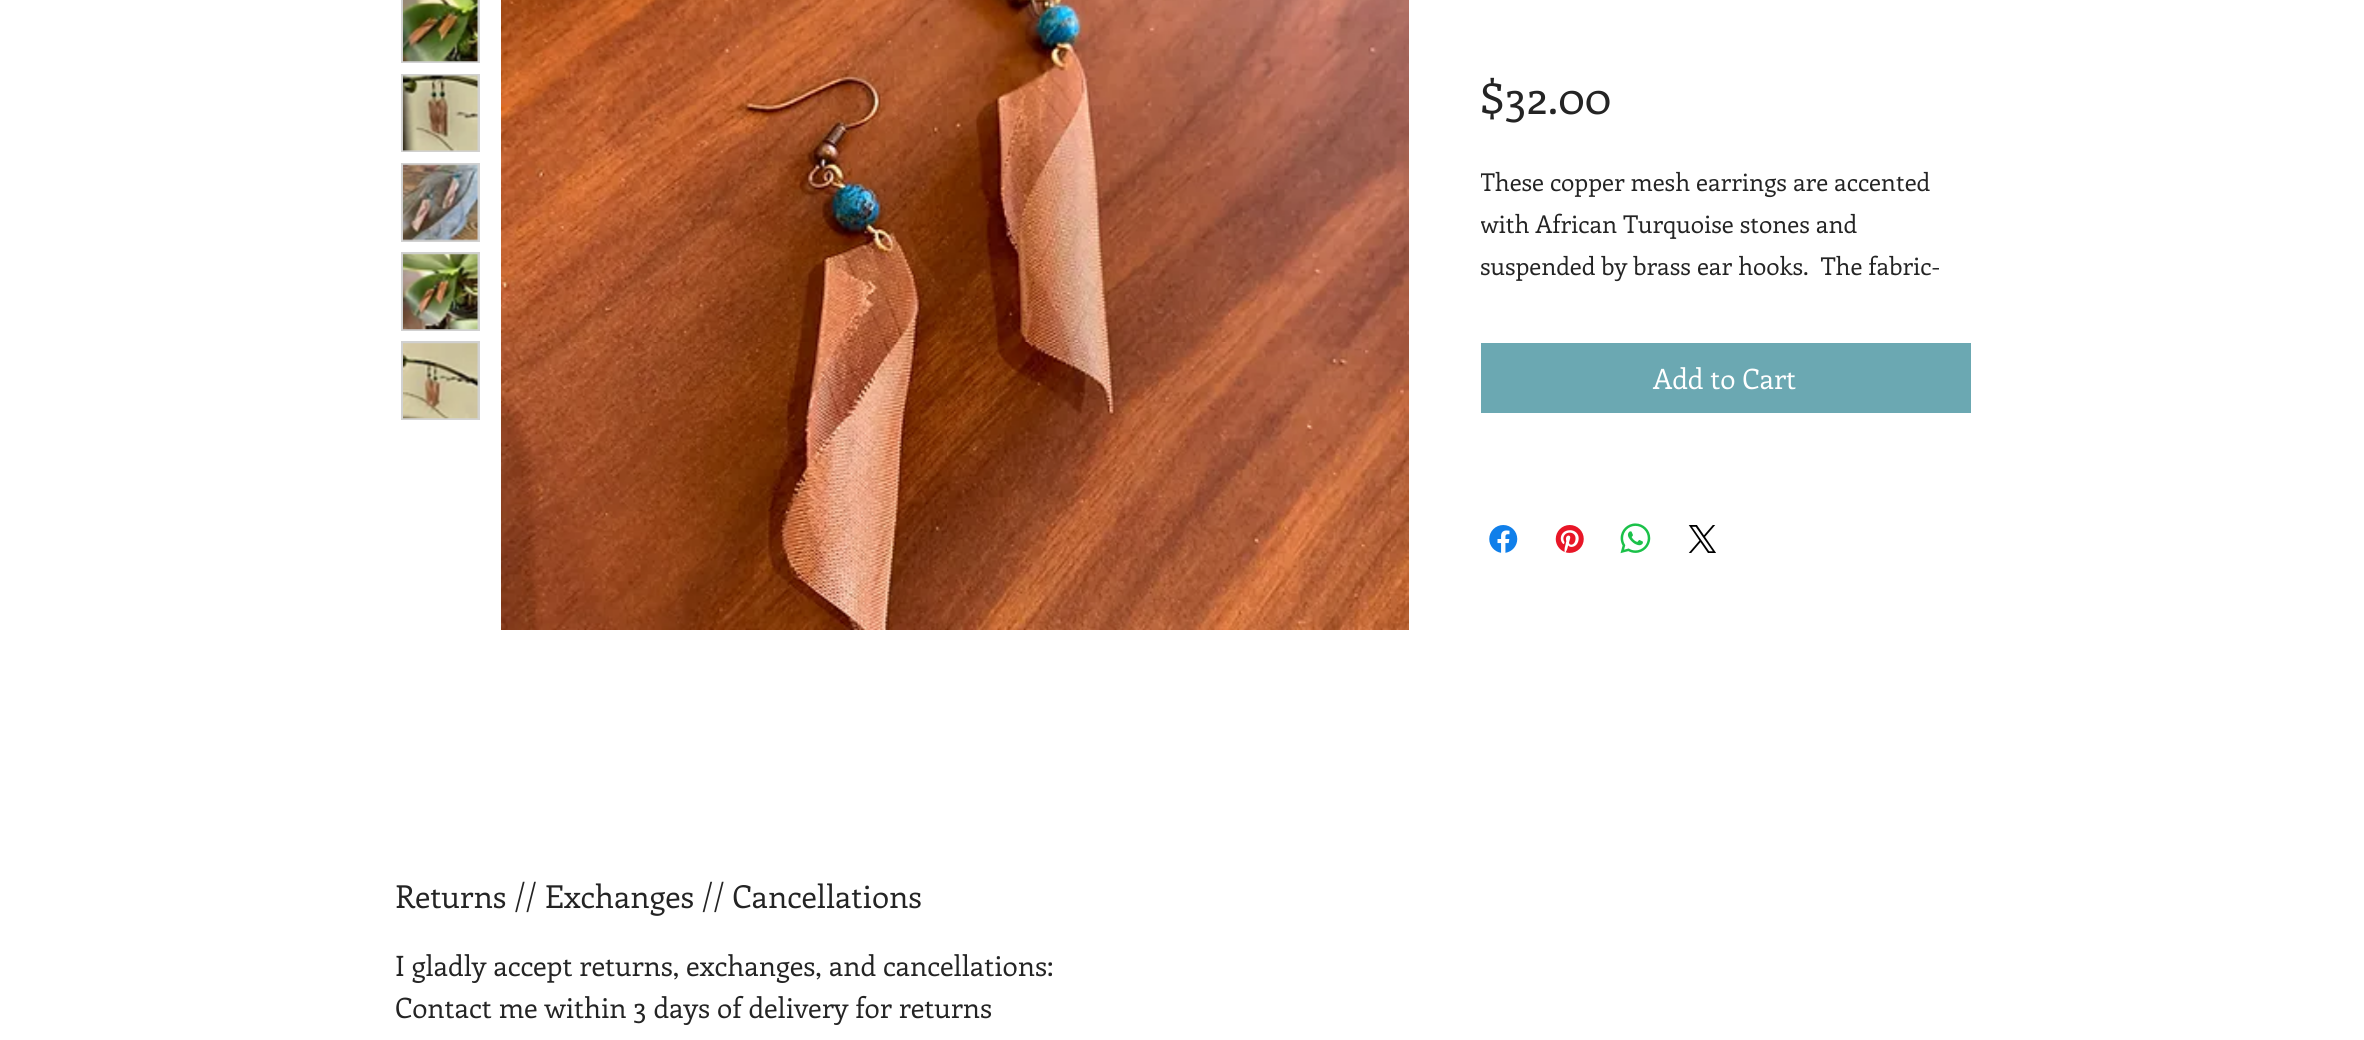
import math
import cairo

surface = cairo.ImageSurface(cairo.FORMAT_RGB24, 2364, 1040)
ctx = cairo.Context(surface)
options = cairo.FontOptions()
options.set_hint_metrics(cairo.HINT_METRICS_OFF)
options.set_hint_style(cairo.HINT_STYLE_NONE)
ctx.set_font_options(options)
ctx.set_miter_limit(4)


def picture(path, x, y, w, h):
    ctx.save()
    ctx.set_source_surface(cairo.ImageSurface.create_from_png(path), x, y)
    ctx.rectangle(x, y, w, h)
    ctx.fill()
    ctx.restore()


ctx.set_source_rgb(1, 1, 1)
ctx.paint()
ctx.set_source_rgb(0.82, 0.82, 0.82)
ctx.rectangle(401, 0, 79, 63)
ctx.fill()
picture("img1.png", 403, 0, 76, 62)
ctx.rectangle(401, 74, 79, 78)
ctx.fill()
picture("img2.png", 403, 75, 76, 77)
ctx.rectangle(401, 163, 79, 79)
ctx.fill()
picture("img3.png", 403, 164, 76, 77)
ctx.rectangle(401, 252, 79, 79)
ctx.fill()
picture("img4.png", 403, 253, 76, 77)
ctx.rectangle(401, 341, 79, 79)
ctx.fill()
picture("img5.png", 403, 343, 76, 76)
picture("img6.png", 501, 0, 908, 630)
ctx.select_font_face("Enriqueta")
ctx.set_font_size(45.5)
ctx.set_source_rgb(0.141, 0.141, 0.141)
ctx.move_to(1480, 114)
ctx.show_text("$32.00")
ctx.save()
ctx.rectangle(1481, 161, 490, 126)
ctx.clip()
ctx.set_font_size(24.5)
ctx.move_to(1480, 191)
ctx.show_text("These copper mesh earrings are accented")
ctx.move_to(1480, 233)
ctx.show_text("with African Turquoise stones and")
ctx.move_to(1480, 275)
ctx.show_text("suspended by brass ear hooks.  The fabric-")
ctx.restore()
ctx.set_source_rgb(0.42, 0.659, 0.698)
ctx.rectangle(1481, 343, 490, 70)
ctx.fill()
ctx.set_font_size(28)
ctx.set_source_rgb(1, 1, 1)
ctx.move_to(1653, 389)
ctx.show_text("Add to Cart")
picture("img7.png", 1489, 525, 29, 28)
picture("img8.png", 1555, 525, 29, 28)
picture("img9.png", 1620, 523, 31, 31)
picture("img10.png", 1688, 525, 28, 28)
ctx.set_font_size(31.5)
ctx.set_source_rgb(0.141, 0.141, 0.141)
ctx.move_to(395, 908)
ctx.show_text("Returns // Exchanges // Cancellations")
ctx.set_font_size(28)
ctx.move_to(395, 976)
ctx.show_text("I gladly accept returns, exchanges, and cancellations:")
ctx.move_to(395, 1018)
ctx.show_text("Contact me within 3 days of delivery for returns")
surface.write_to_png("page.png")
